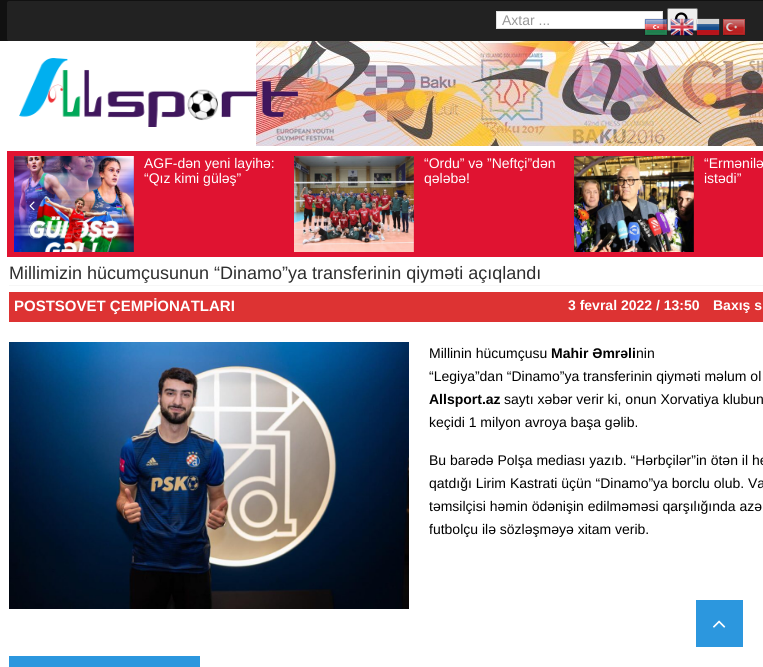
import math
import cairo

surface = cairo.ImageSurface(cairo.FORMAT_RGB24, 763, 667)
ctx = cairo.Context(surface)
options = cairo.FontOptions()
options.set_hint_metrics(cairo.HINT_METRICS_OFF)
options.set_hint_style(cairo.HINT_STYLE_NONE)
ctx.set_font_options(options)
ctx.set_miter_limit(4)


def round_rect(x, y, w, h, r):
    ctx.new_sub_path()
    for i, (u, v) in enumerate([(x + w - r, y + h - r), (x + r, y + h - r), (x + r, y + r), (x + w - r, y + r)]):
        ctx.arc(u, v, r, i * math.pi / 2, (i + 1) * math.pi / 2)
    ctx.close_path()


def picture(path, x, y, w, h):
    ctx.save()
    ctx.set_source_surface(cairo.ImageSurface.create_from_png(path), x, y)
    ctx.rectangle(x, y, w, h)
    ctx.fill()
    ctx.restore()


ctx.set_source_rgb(1, 1, 1)
ctx.paint()
ctx.set_source_rgb(0.067, 0.067, 0.067)
ctx.rectangle(0, 0, 763, 41)
ctx.fill()
ctx.set_source_rgb(0.133, 0.133, 0.133)
round_rect(7, 1, 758, 40, 2)
ctx.fill()
ctx.set_source_rgb(1, 1, 1)
ctx.rectangle(496.5, 11.5, 166, 17)
ctx.fill_preserve()
ctx.set_source_rgb(0.878, 0.878, 0.878)
ctx.set_line_width(1)
ctx.stroke()
ctx.select_font_face("Liberation Sans")
ctx.set_font_size(14)
ctx.set_source_rgb(0.6, 0.6, 0.6)
ctx.move_to(502, 25)
ctx.show_text("Axtar ...")
ctx.set_source_rgb(0.937, 0.937, 0.937)
round_rect(667.5, 8.5, 30, 22, 1.5)
ctx.fill_preserve()
ctx.set_source_rgb(0.463, 0.463, 0.463)
ctx.stroke()
picture("img1.png", 675, 12, 15, 16)
ctx.set_source_rgb(0.878, 0.075, 0.192)
ctx.rectangle(7, 151, 756, 106)
ctx.fill()
picture("img2.png", 14, 156, 120, 96)
ctx.set_source_rgb(1, 1, 1)
ctx.move_to(144, 168)
ctx.show_text("AGF-dən yeni layihə:")
ctx.move_to(144, 183)
ctx.show_text("“Qız kimi güləş”")
picture("img3.png", 294, 156, 120, 96)
ctx.move_to(424, 168)
ctx.show_text("“Ordu” və ”Neftçi”dən")
ctx.move_to(424, 183)
ctx.show_text("qələbə!")
picture("img4.png", 574, 156, 120, 96)
ctx.move_to(704, 168)
ctx.show_text("“Ermənilə")
ctx.move_to(704, 183)
ctx.show_text("istədi”")
picture("img5.png", 29, 201, 6, 10)
ctx.set_source_rgb(0.961, 0.961, 0.961)
ctx.rectangle(9, 285, 754, 1)
ctx.fill()
ctx.set_font_size(18)
ctx.set_source_rgb(0.18, 0.18, 0.18)
ctx.move_to(9, 279)
ctx.show_text("Millimizin hücumçusunun “Dinamo”ya transferinin qiyməti açıqlandı")
ctx.set_source_rgb(0.867, 0.2, 0.2)
ctx.rectangle(9, 292, 754, 30)
ctx.fill()
ctx.select_font_face("Liberation Sans", cairo.FONT_SLANT_NORMAL, cairo.FONT_WEIGHT_BOLD)
ctx.set_font_size(15)
ctx.set_source_rgb(1, 1, 1)
ctx.move_to(14, 311)
ctx.show_text("POSTSOVET ÇEMPİONATLARI")
ctx.set_font_size(14)
ctx.move_to(568, 310)
ctx.show_text("3 fevral 2022 / 13:50")
ctx.move_to(713, 310)
ctx.show_text("Baxış s")
picture("img6.png", 9, 342, 400, 267)
ctx.select_font_face("Liberation Sans")
ctx.set_source_rgb(0, 0, 0)
ctx.move_to(429, 358)
ctx.show_text("Millinin hücumçusu")
ctx.select_font_face("Liberation Sans", cairo.FONT_SLANT_NORMAL, cairo.FONT_WEIGHT_BOLD)
ctx.move_to(551, 358)
ctx.show_text("Mahir Əmrəli")
ctx.select_font_face("Liberation Sans")
ctx.move_to(636, 358)
ctx.show_text("nin")
ctx.move_to(429, 381)
ctx.show_text("“Legiya”dan “Dinamo”ya transferinin qiyməti məlum ol")
ctx.select_font_face("Liberation Sans", cairo.FONT_SLANT_NORMAL, cairo.FONT_WEIGHT_BOLD)
ctx.move_to(429, 404)
ctx.show_text("Allsport.az")
ctx.select_font_face("Liberation Sans")
ctx.move_to(504, 404)
ctx.show_text("saytı xəbər verir ki, onun Xorvatiya klubun")
ctx.move_to(429, 427)
ctx.show_text("keçidi 1 milyon avroya başa gəlib.")
ctx.move_to(429, 465)
ctx.show_text("Bu barədə Polşa mediası yazıb. “Hərbçilər”in ötən il he")
ctx.move_to(429, 488)
ctx.show_text("qatdığı Lirim Kastrati üçün “Dinamo”ya borclu olub. Va")
ctx.move_to(429, 511)
ctx.show_text("təmsilçisi həmin ödənişin edilməməsi qarşılığında azə")
ctx.move_to(429, 534)
ctx.show_text("futbolçu ilə sözləşməyə xitam verib.")
ctx.set_source_rgb(0.173, 0.592, 0.871)
ctx.rectangle(9, 656, 191, 11)
ctx.fill()
picture("img7.png", 644, 18, 24, 18)
picture("img8.png", 670, 18, 24, 18)
picture("img9.png", 696, 18, 24, 18)
picture("img10.png", 723, 19, 22, 17)
picture("img11.png", 256, 41, 507, 105)
picture("img12.png", 19, 58, 279, 69)
ctx.rectangle(696, 600, 47, 47)
ctx.fill()
picture("img13.png", 713, 620, 13, 8)
surface.write_to_png("page.png")
